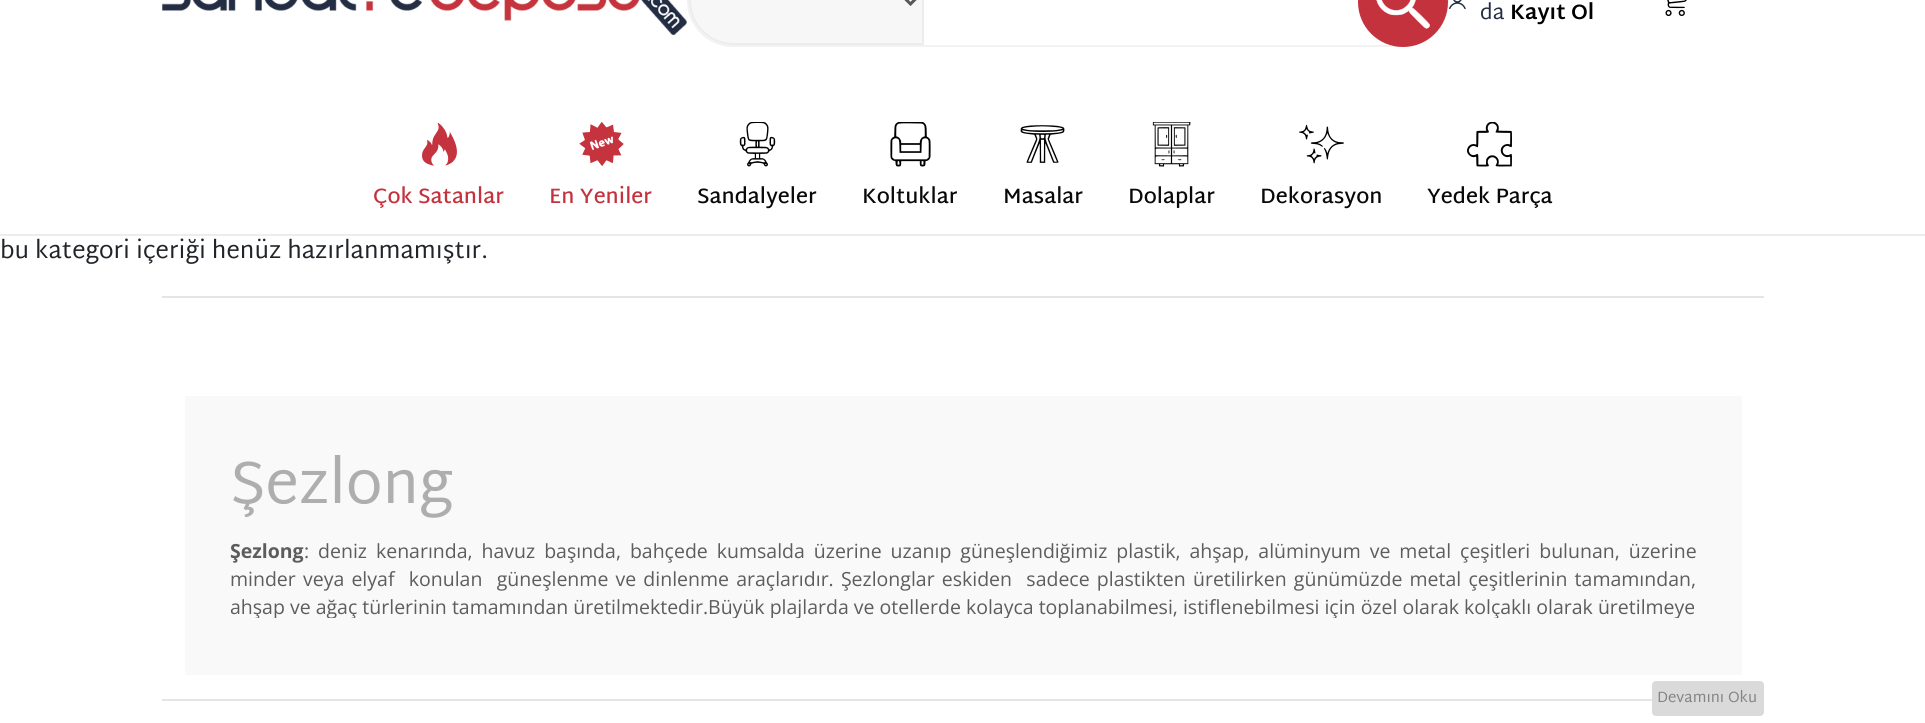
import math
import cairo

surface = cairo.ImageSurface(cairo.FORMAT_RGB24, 1925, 723)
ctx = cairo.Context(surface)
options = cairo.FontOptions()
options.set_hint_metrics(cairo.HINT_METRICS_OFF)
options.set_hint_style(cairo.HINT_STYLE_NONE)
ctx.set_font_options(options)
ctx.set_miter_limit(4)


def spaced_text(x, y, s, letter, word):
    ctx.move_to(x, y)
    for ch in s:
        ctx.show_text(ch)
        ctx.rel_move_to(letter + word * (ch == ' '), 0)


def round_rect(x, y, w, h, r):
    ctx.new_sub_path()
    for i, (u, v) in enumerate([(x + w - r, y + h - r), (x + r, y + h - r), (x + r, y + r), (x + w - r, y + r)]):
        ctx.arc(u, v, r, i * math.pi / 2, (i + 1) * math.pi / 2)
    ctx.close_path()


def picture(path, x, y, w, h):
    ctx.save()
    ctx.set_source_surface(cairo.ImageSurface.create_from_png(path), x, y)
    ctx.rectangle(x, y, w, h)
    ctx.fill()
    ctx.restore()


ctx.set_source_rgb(1, 1, 1)
ctx.paint()
picture("img1.png", 162, 0, 525, 36)
round_rect(688, -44, 760, 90, 45)
ctx.set_source_rgb(0.949, 0.949, 0.949)
ctx.stroke()
ctx.set_source_rgb(0.965, 0.965, 0.965)
ctx.new_path()
ctx.move_to(733, -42)
ctx.line_to(923, -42)
ctx.line_to(923, 44)
ctx.line_to(733, 44)
ctx.curve_to(709.5, 44, 690, 24.5, 690, 1)
ctx.curve_to(690, -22.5, 709.5, -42, 733, -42)
ctx.close_path()
ctx.fill_preserve()
ctx.set_source_rgb(0.925, 0.925, 0.925)
ctx.stroke()
ctx.new_path()
ctx.move_to(904.5, -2)
ctx.line_to(910.5, 4)
ctx.line_to(916.5, -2)
ctx.set_source_rgb(0.345, 0.345, 0.345)
ctx.set_line_width(3)
ctx.stroke()
ctx.set_source_rgb(0.769, 0.2, 0.239)
ctx.arc(1403, 2, 45, 0, 2 * math.pi)
ctx.fill()
picture("img2.png", 1376, 0, 54, 29)
picture("img3.png", 1449, 0, 17, 9)
ctx.select_font_face("Martel Sans")
ctx.set_font_size(21)
ctx.set_source_rgb(0.137, 0.176, 0.267)
ctx.move_to(1480, 19)
ctx.show_text("da")
ctx.select_font_face("Martel Sans", cairo.FONT_SLANT_NORMAL, cairo.FONT_WEIGHT_BOLD)
ctx.set_source_rgb(0, 0, 0)
ctx.move_to(1510, 19)
ctx.show_text("Kayıt Ol")
picture("img4.png", 1665, 0, 22, 17)
ctx.set_source_rgb(0.929, 0.929, 0.929)
ctx.rectangle(0, 234, 1925, 2)
ctx.fill()
picture("img5.png", 422, 122, 35, 44)
ctx.select_font_face("Martel Sans SemiBold")
ctx.set_source_rgb(0.769, 0.2, 0.239)
ctx.move_to(373, 203)
ctx.show_text("Çok Satanlar")
picture("img6.png", 579, 122, 45, 45)
ctx.move_to(549, 203)
ctx.show_text("En Yeniler")
picture("img7.png", 739, 122, 37, 45)
ctx.set_source_rgb(0.039, 0.039, 0.039)
ctx.move_to(697, 203)
ctx.show_text("Sandalyeler")
picture("img8.png", 890, 122, 41, 45)
ctx.move_to(862, 203)
ctx.show_text("Koltuklar")
picture("img9.png", 1020, 125, 45, 38)
ctx.move_to(1003, 203)
ctx.show_text("Masalar")
picture("img10.png", 1152, 122, 39, 45)
ctx.move_to(1128, 203)
ctx.show_text("Dolaplar")
picture("img11.png", 1299, 124, 45, 40)
ctx.move_to(1260, 203)
ctx.show_text("Dekorasyon")
picture("img12.png", 1467, 122, 45, 45)
ctx.move_to(1427, 203)
ctx.show_text("Yedek Parça")
ctx.select_font_face("Martel Sans")
ctx.set_font_size(24)
ctx.set_source_rgb(0.129, 0.145, 0.161)
ctx.move_to(0, 258)
ctx.show_text("bu kategori içeriği henüz hazırlanmamıştır.")
ctx.set_source_rgb(0.898, 0.898, 0.898)
ctx.rectangle(162, 296, 1602, 2)
ctx.fill()
ctx.rectangle(162, 699, 1490, 2)
ctx.fill()
ctx.set_source_rgb(0.976, 0.976, 0.976)
ctx.rectangle(185, 396, 1557, 279)
ctx.fill()
ctx.set_font_size(60)
ctx.set_source_rgb(0.682, 0.682, 0.682)
ctx.move_to(230, 503)
ctx.show_text("Şezlong")
ctx.select_font_face("Open Sans", cairo.FONT_SLANT_NORMAL, cairo.FONT_WEIGHT_BOLD)
ctx.set_font_size(19.5)
ctx.set_source_rgb(0.365, 0.365, 0.365)
ctx.move_to(230, 558)
ctx.show_text("Şezlong")
ctx.select_font_face("Open Sans")
spaced_text(304, 558, ": deniz kenarında, havuz başında, bahçede kumsalda üzerine uzanıp güneşlendiğimiz plastik, ahşap, alüminyum ve metal çeşitleri bulunan, üzerine", 0, 3.9)
spaced_text(230, 586, "minder veya elyaf  konulan  güneşlenme ve dinlenme araçlarıdır. Şezlonglar eskiden  sadece plastikten üretilirken günümüzde metal çeşitlerinin tamamından,", 0, 2.1)
ctx.save()
ctx.rectangle(230, 453, 1467, 165)
ctx.clip()
ctx.move_to(230, 614)
ctx.show_text("ahşap ve ağaç türlerinin tamamından üretilmektedir.Büyük plajlarda ve otellerde kolayca toplanabilmesi, istiflenebilmesi için özel olarak kolçaklı olarak üretilmeye")
ctx.restore()
ctx.set_source_rgb(0.855, 0.855, 0.855)
round_rect(1652, 681, 112, 35, 4)
ctx.fill()
ctx.select_font_face("Martel Sans")
ctx.set_font_size(15)
ctx.set_source_rgb(0.518, 0.518, 0.518)
ctx.move_to(1657, 702)
ctx.show_text("Devamını Oku")
surface.write_to_png("page.png")
